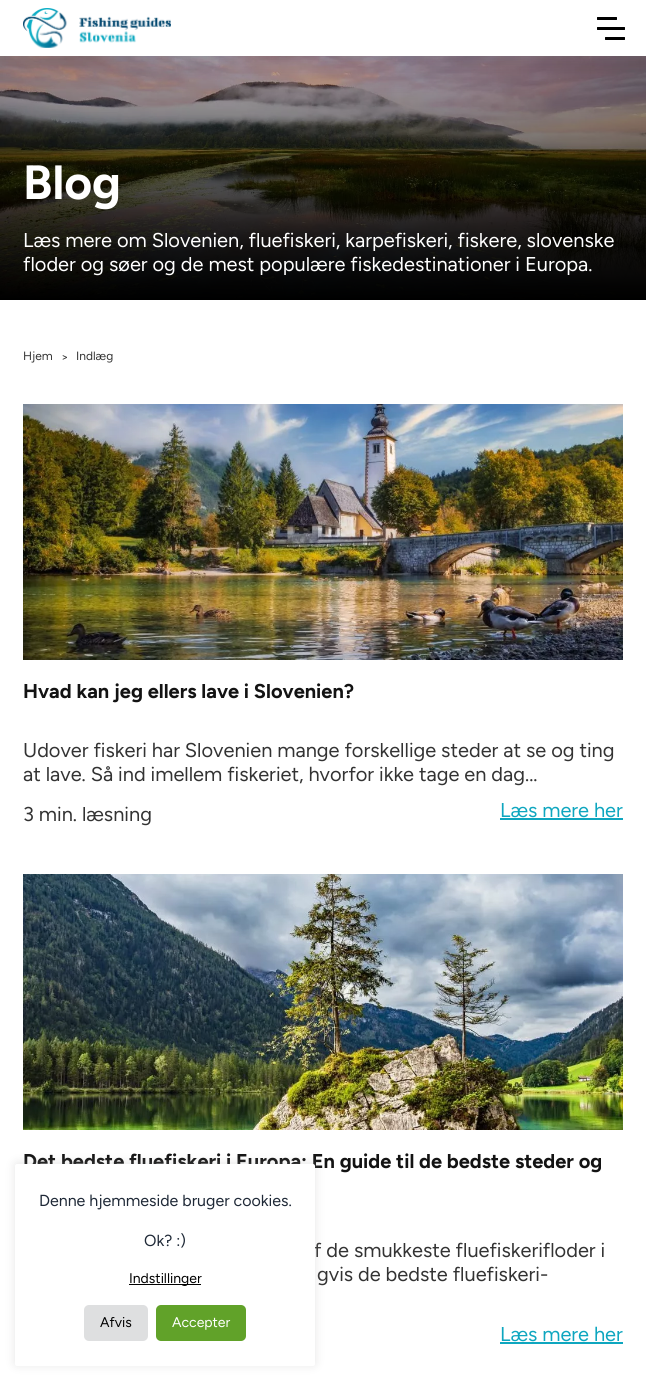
import math
import cairo

surface = cairo.ImageSurface(cairo.FORMAT_RGB24, 646, 1381)
ctx = cairo.Context(surface)
options = cairo.FontOptions()
options.set_hint_metrics(cairo.HINT_METRICS_OFF)
options.set_hint_style(cairo.HINT_STYLE_NONE)
ctx.set_font_options(options)
ctx.set_miter_limit(4)


def round_rect(x, y, w, h, r):
    ctx.new_sub_path()
    for i, (u, v) in enumerate([(x + w - r, y + h - r), (x + r, y + h - r), (x + r, y + r), (x + w - r, y + r)]):
        ctx.arc(u, v, r, i * math.pi / 2, (i + 1) * math.pi / 2)
    ctx.close_path()


def shadow(x, y, w, h, r, blur, alpha):
    ctx.push_group_with_content(cairo.CONTENT_ALPHA)
    ctx.set_operator(cairo.OPERATOR_SOURCE)
    for i in range(15, -16, -2):
        e = blur * i / 6
        if min(w, h) + 2 * e > 0:
            ctx.set_source_rgba(0, 0, 0, alpha * math.erfc((i - 1) / 8.5) / 2)
            round_rect(x - e, y - e, w + 2 * e, h + 2 * e, max(0, min(r + e + blur * .6, min(w, h) / 2 + e)))
            ctx.fill()
    ctx.mask(ctx.pop_group())


def picture(path, x, y, w, h):
    ctx.save()
    ctx.set_source_surface(cairo.ImageSurface.create_from_png(path), x, y)
    ctx.rectangle(x, y, w, h)
    ctx.fill()
    ctx.restore()


ctx.set_source_rgb(1, 1, 1)
ctx.paint()
picture("img2.png", 0, 56, 646, 244)
ctx.set_source_rgb(0, 0, 0)
shadow(0, 8, 646, 56, 0, 8, 0.08)
ctx.set_source_rgb(1, 1, 1)
ctx.rectangle(0, 0, 646, 56)
ctx.fill()
picture("img1.png", 23, 8, 148, 40)
ctx.set_source_rgb(0, 0, 0)
round_rect(597, 17, 20, 3, 0.5)
ctx.fill()
round_rect(605, 37, 20, 3, 0.5)
ctx.fill()
round_rect(597, 27, 28, 3, 0.5)
ctx.fill()
ctx.select_font_face("Figtree", cairo.FONT_SLANT_NORMAL, cairo.FONT_WEIGHT_BOLD)
ctx.set_font_size(48)
ctx.set_source_rgb(1, 1, 1)
ctx.move_to(23, 199)
ctx.show_text("Blog")
ctx.select_font_face("Figtree")
ctx.set_font_size(20)
ctx.move_to(23, 247)
ctx.show_text("Læs mere om Slovenien, fluefiskeri, karpefiskeri, fiskere, slovenske")
ctx.move_to(23, 271)
ctx.show_text("floder og søer og de mest populære fiskedestinationer i Europa.")
ctx.set_font_size(12)
ctx.set_source_rgb(0.2, 0.2, 0.2)
ctx.move_to(23, 360)
ctx.show_text("Hjem")
ctx.move_to(61, 361)
ctx.show_text(">")
ctx.move_to(76, 360)
ctx.show_text("Indlæg")
picture("img3.png", 23, 404, 600, 256)
ctx.select_font_face("Figtree", cairo.FONT_SLANT_NORMAL, cairo.FONT_WEIGHT_BOLD)
ctx.set_font_size(20)
ctx.set_source_rgb(0.075, 0.075, 0.075)
ctx.move_to(23, 698)
ctx.show_text("Hvad kan jeg ellers lave i Slovenien?")
ctx.select_font_face("Figtree")
ctx.set_source_rgb(0.2, 0.2, 0.2)
ctx.move_to(23, 757)
ctx.show_text("Udover fiskeri har Slovenien mange forskellige steder at se og ting")
ctx.move_to(23, 781)
ctx.show_text("at lave. Så ind imellem fiskeriet, hvorfor ikke tage en dag...")
ctx.move_to(23, 821)
ctx.show_text("3 min. læsning")
ctx.set_source_rgb(0.055, 0.651, 0.749)
ctx.move_to(500, 817)
ctx.show_text("Læs mere her")
ctx.rectangle(500, 818, 123, 2)
ctx.fill()
picture("img4.png", 23, 874, 600, 256)
ctx.select_font_face("Figtree", cairo.FONT_SLANT_NORMAL, cairo.FONT_WEIGHT_BOLD)
ctx.set_source_rgb(0.075, 0.075, 0.075)
ctx.move_to(23, 1168)
ctx.show_text("Det bedste fluefiskeri i Europa: En guide til de bedste steder og")
ctx.select_font_face("Figtree")
ctx.set_source_rgb(0.2, 0.2, 0.2)
ctx.move_to(314, 1257)
ctx.show_text("f de smukkeste fluefiskerifloder i")
ctx.move_to(317, 1281)
ctx.show_text("gvis de bedste fluefiskeri-")
ctx.set_source_rgb(0.055, 0.651, 0.749)
ctx.move_to(500, 1341)
ctx.show_text("Læs mere her")
ctx.rectangle(500, 1342, 123, 2)
ctx.fill()
ctx.set_source_rgb(0.675, 0.671, 0.671)
shadow(15, 1163, 300, 202, 2, 5, 0.3)
ctx.set_source_rgb(1, 1, 1)
round_rect(15, 1164, 300, 202, 2)
ctx.fill()
ctx.set_font_size(16)
ctx.set_source_rgb(0.122, 0.161, 0.216)
ctx.move_to(39, 1206)
ctx.show_text("Denne hjemmeside bruger cookies.")
ctx.move_to(144, 1246)
ctx.show_text("Ok? :)")
ctx.set_source_rgb(0, 0, 0)
ctx.rectangle(129, 1284, 72, 1)
ctx.fill()
ctx.set_font_size(14)
ctx.move_to(129, 1283)
ctx.show_text("Indstillinger")
ctx.set_source_rgb(0.871, 0.875, 0.878)
round_rect(84, 1305, 64, 36, 5)
ctx.fill()
ctx.set_source_rgb(0, 0, 0)
ctx.move_to(100, 1327)
ctx.show_text("Afvis")
ctx.set_source_rgb(0.38, 0.635, 0.161)
round_rect(156, 1305, 90, 36, 5)
ctx.fill()
ctx.set_source_rgb(1, 1, 1)
ctx.move_to(172, 1327)
ctx.show_text("Accepter")
surface.write_to_png("page.png")
